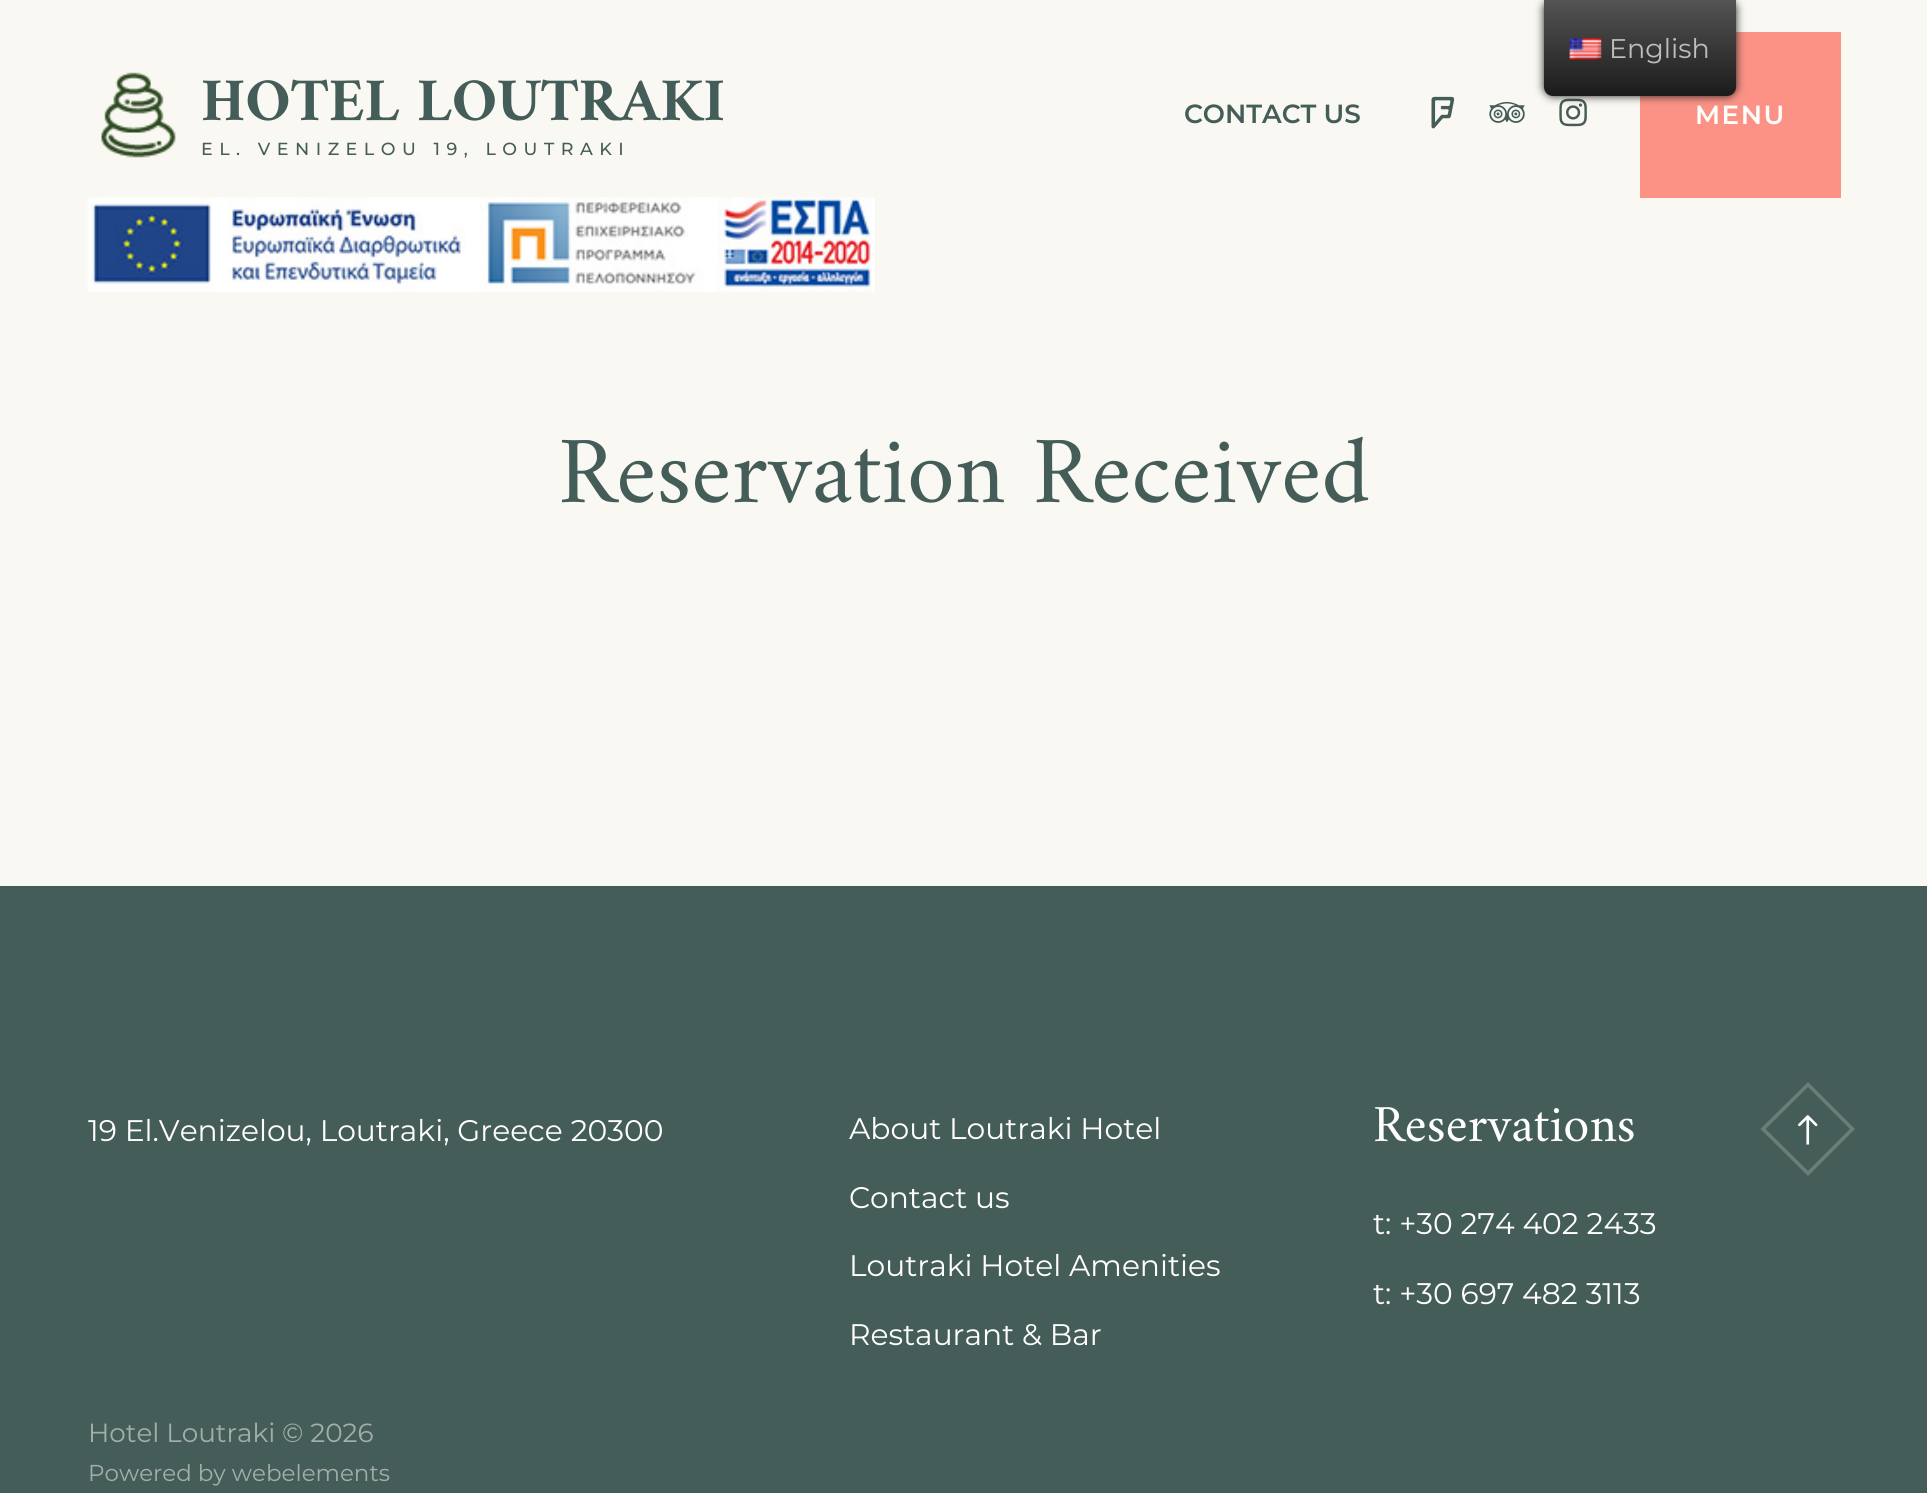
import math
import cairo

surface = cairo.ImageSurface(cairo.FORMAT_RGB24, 1927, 1493)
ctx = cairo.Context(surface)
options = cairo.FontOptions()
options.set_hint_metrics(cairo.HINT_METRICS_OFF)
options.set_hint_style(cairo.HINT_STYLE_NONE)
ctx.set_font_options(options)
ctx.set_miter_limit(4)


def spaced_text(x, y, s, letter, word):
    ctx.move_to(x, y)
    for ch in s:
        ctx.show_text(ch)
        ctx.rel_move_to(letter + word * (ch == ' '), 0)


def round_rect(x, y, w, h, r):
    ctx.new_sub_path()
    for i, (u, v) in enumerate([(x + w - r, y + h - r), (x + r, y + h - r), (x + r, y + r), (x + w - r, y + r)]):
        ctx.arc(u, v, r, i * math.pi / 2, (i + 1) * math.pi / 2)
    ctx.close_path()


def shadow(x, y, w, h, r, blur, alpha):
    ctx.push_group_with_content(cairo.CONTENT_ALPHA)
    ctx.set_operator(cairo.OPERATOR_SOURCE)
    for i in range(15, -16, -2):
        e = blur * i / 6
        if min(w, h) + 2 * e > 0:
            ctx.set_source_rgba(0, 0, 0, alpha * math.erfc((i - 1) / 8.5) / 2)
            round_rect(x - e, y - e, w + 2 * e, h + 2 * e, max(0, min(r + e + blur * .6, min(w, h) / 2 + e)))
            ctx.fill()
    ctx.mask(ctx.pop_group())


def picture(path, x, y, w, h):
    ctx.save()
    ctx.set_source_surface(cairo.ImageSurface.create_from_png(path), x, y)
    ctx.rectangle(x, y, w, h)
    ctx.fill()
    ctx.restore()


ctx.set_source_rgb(0.98, 0.969, 0.949)
ctx.paint()
picture("img5.png", 1559, 98, 28, 29)
ctx.set_source_rgb(0.988, 0.573, 0.522)
ctx.rectangle(1640, 32, 201, 166)
ctx.fill()
ctx.set_source_rgb(0.129, 0.129, 0.129)
shadow(1544, 0, 192, 96, 9, 4.5, 1)
gradient = cairo.LinearGradient(1640, 96, 1640, 0)
gradient.add_color_stop_rgba(0, 0.106, 0.106, 0.106, 1)
gradient.add_color_stop_rgba(1, 0.329, 0.329, 0.329, 1)
ctx.set_source(gradient)
ctx.new_path()
ctx.move_to(1544, 0)
ctx.line_to(1736, 0)
ctx.line_to(1736, 87)
ctx.curve_to(1736, 92, 1732, 96, 1727, 96)
ctx.line_to(1553, 96)
ctx.curve_to(1548, 96, 1544, 92, 1544, 87)
ctx.close_path()
ctx.fill()
picture("img1.png", 1569, 38, 33, 22)
ctx.select_font_face("Montserrat")
ctx.set_font_size(27)
ctx.set_source_rgb(0.741, 0.741, 0.741)
ctx.move_to(1609, 58)
ctx.show_text("English")
picture("img2.png", 101, 72, 75, 86)
ctx.select_font_face("Amiri", cairo.FONT_SLANT_NORMAL, cairo.FONT_WEIGHT_BOLD)
ctx.set_font_size(61.25)
ctx.set_source_rgb(0.271, 0.365, 0.345)
ctx.move_to(201, 120)
ctx.show_text("HOTEL LOUTRAKI")
ctx.select_font_face("Montserrat Medium")
ctx.set_font_size(17.5)
spaced_text(201, 155, "EL. VENIZELOU 19, LOUTRAKI", 6.5, 0)
ctx.select_font_face("Montserrat SemiBold")
ctx.set_font_size(26.25)
ctx.move_to(1184, 123)
ctx.show_text("CONTACT US")
picture("img3.png", 1431, 96, 24, 33)
picture("img4.png", 1489, 101, 36, 22)
ctx.set_source_rgb(1, 1, 1)
spaced_text(1695, 124, "MENU", 1.5, 0)
picture("img6.png", 87, 197, 788, 95)
ctx.select_font_face("Amiri")
ctx.set_font_size(96.25)
ctx.set_source_rgb(0.271, 0.365, 0.345)
ctx.move_to(558, 502)
ctx.show_text("Reservation Received")
ctx.rectangle(0, 886, 1927, 607)
ctx.fill()
ctx.select_font_face("Montserrat")
ctx.set_font_size(29.75)
ctx.set_source_rgb(1, 1, 1)
ctx.move_to(88, 1141)
ctx.show_text("19 El.Venizelou, Loutraki, Greece 20300")
ctx.move_to(849, 1139)
ctx.show_text("About Loutraki Hotel")
ctx.move_to(849, 1208)
ctx.show_text("Contact us")
ctx.move_to(849, 1276)
ctx.show_text("Loutraki Hotel Amenities")
ctx.move_to(849, 1345)
ctx.show_text("Restaurant & Bar")
ctx.select_font_face("Amiri")
ctx.set_font_size(52.5)
ctx.move_to(1373, 1141)
ctx.show_text("Reservations")
ctx.select_font_face("Montserrat")
ctx.set_font_size(29.75)
ctx.move_to(1373, 1234)
ctx.show_text("t: +30 274 402 2433")
ctx.move_to(1373, 1304)
ctx.show_text("t: +30 697 482 3113")
ctx.new_path()
ctx.move_to(1808, 1084.5)
ctx.line_to(1852.5, 1129)
ctx.line_to(1808, 1173.5)
ctx.line_to(1763, 1129)
ctx.close_path()
ctx.set_source_rgb(0.416, 0.49, 0.475)
ctx.set_line_width(3.5)
ctx.stroke()
picture("img7.png", 1798, 1115, 20, 30)
ctx.set_font_size(26.25)
ctx.set_source_rgb(0.635, 0.682, 0.675)
ctx.move_to(88, 1442)
ctx.show_text("Hotel Loutraki © 2026")
ctx.set_font_size(23)
ctx.move_to(88, 1481)
ctx.show_text("Powered by webelements")
surface.write_to_png("page.png")
